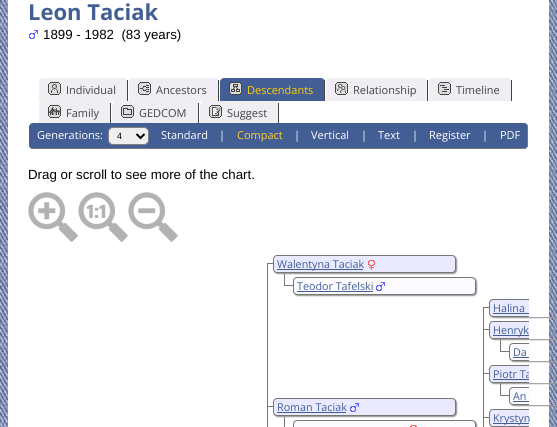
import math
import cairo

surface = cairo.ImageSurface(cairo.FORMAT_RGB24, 557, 427)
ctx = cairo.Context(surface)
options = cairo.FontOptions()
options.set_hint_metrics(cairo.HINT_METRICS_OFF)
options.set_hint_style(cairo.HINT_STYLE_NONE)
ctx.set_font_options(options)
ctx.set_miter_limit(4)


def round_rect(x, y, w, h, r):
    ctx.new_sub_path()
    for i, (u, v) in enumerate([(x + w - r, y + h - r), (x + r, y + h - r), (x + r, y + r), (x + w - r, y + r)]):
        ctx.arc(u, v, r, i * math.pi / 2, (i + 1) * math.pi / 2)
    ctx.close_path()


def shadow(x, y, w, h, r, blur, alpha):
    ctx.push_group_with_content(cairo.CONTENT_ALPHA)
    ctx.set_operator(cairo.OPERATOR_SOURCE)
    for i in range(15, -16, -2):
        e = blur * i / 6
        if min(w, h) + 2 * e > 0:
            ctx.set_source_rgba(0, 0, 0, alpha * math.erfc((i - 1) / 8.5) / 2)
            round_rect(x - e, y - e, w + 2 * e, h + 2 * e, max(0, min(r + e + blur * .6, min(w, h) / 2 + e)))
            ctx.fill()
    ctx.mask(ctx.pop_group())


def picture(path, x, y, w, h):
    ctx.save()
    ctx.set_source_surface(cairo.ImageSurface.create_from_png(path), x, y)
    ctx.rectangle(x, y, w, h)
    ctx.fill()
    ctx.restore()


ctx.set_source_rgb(1, 1, 1)
ctx.paint()
picture("img1.png", 0, 0, 557, 427)
ctx.set_source_rgb(1, 1, 1)
ctx.rectangle(8, 0, 541, 427)
ctx.fill()
ctx.select_font_face("Open Sans", cairo.FONT_SLANT_NORMAL, cairo.FONT_WEIGHT_BOLD)
ctx.set_font_size(22)
ctx.set_source_rgb(0.263, 0.369, 0.584)
ctx.move_to(28, 20)
ctx.show_text("Leon Taciak")
picture("img2.png", 29, 30, 9, 9)
ctx.select_font_face("Liberation Sans")
ctx.set_font_size(13.3)
ctx.set_source_rgb(0, 0, 0)
ctx.move_to(43, 39)
ctx.show_text("1899 - 1982  (83 years)")
ctx.set_source_rgb(0.933, 0.933, 0.953)
ctx.new_path()
ctx.move_to(43, 78)
ctx.line_to(124, 78)
ctx.curve_to(126, 78, 128, 80, 128, 82)
ctx.line_to(128, 101)
ctx.line_to(39, 101)
ctx.line_to(39, 82)
ctx.curve_to(39, 80, 41, 78, 43, 78)
ctx.close_path()
ctx.fill()
ctx.set_source_rgb(0.267, 0.267, 0.267)
ctx.rectangle(127, 80, 1, 21)
ctx.fill()
picture("img3.png", 48, 82, 13, 13)
ctx.select_font_face("Open Sans")
ctx.set_font_size(11)
ctx.move_to(66, 94)
ctx.show_text("Individual")
ctx.set_source_rgb(0.933, 0.933, 0.953)
ctx.new_path()
ctx.move_to(133, 78)
ctx.line_to(215, 78)
ctx.curve_to(217, 78, 219, 80, 219, 82)
ctx.line_to(219, 101)
ctx.line_to(129, 101)
ctx.line_to(129, 82)
ctx.curve_to(129, 80, 131, 78, 133, 78)
ctx.close_path()
ctx.fill()
ctx.set_source_rgb(0.267, 0.267, 0.267)
ctx.rectangle(218, 80, 1, 21)
ctx.fill()
picture("img4.png", 138, 82, 13, 13)
ctx.move_to(156, 94)
ctx.show_text("Ancestors")
ctx.set_source_rgb(0.263, 0.369, 0.584)
ctx.new_path()
ctx.move_to(224, 78)
ctx.line_to(321, 78)
ctx.curve_to(323, 78, 325, 80, 325, 82)
ctx.line_to(325, 101)
ctx.line_to(220, 101)
ctx.line_to(220, 82)
ctx.curve_to(220, 80, 222, 78, 224, 78)
ctx.close_path()
ctx.fill()
ctx.set_source_rgb(0.267, 0.267, 0.267)
ctx.rectangle(324, 80, 1, 21)
ctx.fill()
picture("img5.png", 229, 82, 13, 13)
ctx.set_source_rgb(1, 0.8, 0)
ctx.move_to(247, 94)
ctx.show_text("Descendants")
ctx.set_source_rgb(0.933, 0.933, 0.953)
ctx.new_path()
ctx.move_to(330, 78)
ctx.line_to(424, 78)
ctx.curve_to(426, 78, 428, 80, 428, 82)
ctx.line_to(428, 101)
ctx.line_to(326, 101)
ctx.line_to(326, 82)
ctx.curve_to(326, 80, 328, 78, 330, 78)
ctx.close_path()
ctx.fill()
ctx.set_source_rgb(0.267, 0.267, 0.267)
ctx.rectangle(427, 80, 1, 21)
ctx.fill()
picture("img6.png", 335, 82, 13, 13)
ctx.move_to(353, 94)
ctx.show_text("Relationship")
ctx.set_source_rgb(0.933, 0.933, 0.953)
ctx.new_path()
ctx.move_to(433, 78)
ctx.line_to(508, 78)
ctx.curve_to(510, 78, 512, 80, 512, 82)
ctx.line_to(512, 101)
ctx.line_to(429, 101)
ctx.line_to(429, 82)
ctx.curve_to(429, 80, 431, 78, 433, 78)
ctx.close_path()
ctx.fill()
ctx.set_source_rgb(0.267, 0.267, 0.267)
ctx.rectangle(511, 80, 1, 21)
ctx.fill()
picture("img7.png", 438, 82, 13, 13)
ctx.move_to(456, 94)
ctx.show_text("Timeline")
ctx.set_source_rgb(0.933, 0.933, 0.953)
ctx.new_path()
ctx.move_to(43, 101)
ctx.line_to(107, 101)
ctx.curve_to(109, 101, 111, 103, 111, 105)
ctx.line_to(111, 123)
ctx.line_to(39, 123)
ctx.line_to(39, 105)
ctx.curve_to(39, 103, 41, 101, 43, 101)
ctx.close_path()
ctx.fill()
ctx.set_source_rgb(0.267, 0.267, 0.267)
ctx.rectangle(110, 103, 1, 20)
ctx.fill()
picture("img8.png", 48, 105, 13, 13)
ctx.move_to(66, 117)
ctx.show_text("Family")
ctx.set_source_rgb(0.933, 0.933, 0.953)
ctx.new_path()
ctx.move_to(116, 101)
ctx.line_to(195, 101)
ctx.curve_to(197, 101, 199, 103, 199, 105)
ctx.line_to(199, 123)
ctx.line_to(112, 123)
ctx.line_to(112, 105)
ctx.curve_to(112, 103, 114, 101, 116, 101)
ctx.close_path()
ctx.fill()
ctx.set_source_rgb(0.267, 0.267, 0.267)
ctx.rectangle(198, 103, 1, 20)
ctx.fill()
picture("img9.png", 121, 105, 13, 13)
ctx.move_to(139, 117)
ctx.show_text("GEDCOM")
ctx.set_source_rgb(0.933, 0.933, 0.953)
ctx.new_path()
ctx.move_to(204, 101)
ctx.line_to(275, 101)
ctx.curve_to(277, 101, 279, 103, 279, 105)
ctx.line_to(279, 123)
ctx.line_to(200, 123)
ctx.line_to(200, 105)
ctx.curve_to(200, 103, 202, 101, 204, 101)
ctx.close_path()
ctx.fill()
ctx.set_source_rgb(0.267, 0.267, 0.267)
ctx.rectangle(278, 103, 1, 20)
ctx.fill()
picture("img10.png", 209, 105, 13, 13)
ctx.move_to(227, 117)
ctx.show_text("Suggest")
ctx.set_source_rgb(0.263, 0.369, 0.584)
round_rect(29, 123, 499, 26, 4)
ctx.fill()
ctx.set_source_rgb(0.467, 0.467, 0.467)
ctx.set_fill_rule(cairo.FILL_RULE_EVEN_ODD)
ctx.new_path()
ctx.move_to(33, 123)
ctx.line_to(524, 123)
ctx.curve_to(526, 123, 528, 125, 528, 127)
ctx.line_to(528, 145)
ctx.curve_to(528, 147, 526, 149, 524, 149)
ctx.line_to(33, 149)
ctx.curve_to(31, 149, 29, 147, 29, 145)
ctx.line_to(29, 127)
ctx.curve_to(29, 125, 31, 123, 33, 123)
ctx.close_path()
ctx.move_to(33, 123)
ctx.line_to(524, 123)
ctx.curve_to(526, 123, 527, 125, 527, 127)
ctx.line_to(527, 145)
ctx.curve_to(527, 147, 526, 148, 524, 148)
ctx.line_to(33, 148)
ctx.curve_to(31, 148, 29, 147, 29, 145)
ctx.line_to(29, 127)
ctx.curve_to(29, 125, 31, 123, 33, 123)
ctx.close_path()
ctx.fill()
ctx.set_source_rgb(1, 1, 1)
ctx.move_to(37, 139)
ctx.show_text("Generations:")
ctx.set_source_rgb(0.937, 0.937, 0.937)
round_rect(108.5, 127.5, 40, 17, 4.5)
ctx.fill_preserve()
ctx.set_source_rgb(0.502, 0.502, 0.502)
ctx.set_line_width(1)
ctx.stroke()
ctx.new_path()
ctx.move_to(136.5, 134)
ctx.line_to(140.5, 138)
ctx.line_to(144.5, 134)
ctx.set_source_rgb(0, 0, 0)
ctx.set_line_width(2)
ctx.stroke()
ctx.select_font_face("Liberation Sans")
ctx.set_font_size(9)
ctx.move_to(117, 139)
ctx.show_text("4")
ctx.select_font_face("Open Sans")
ctx.set_font_size(11)
ctx.set_source_rgb(1, 1, 1)
ctx.move_to(161, 139)
ctx.show_text("Standard")
ctx.move_to(219, 139)
ctx.show_text("|")
ctx.set_source_rgb(1, 0.8, 0.2)
ctx.move_to(237, 139)
ctx.show_text("Compact")
ctx.set_source_rgb(1, 1, 1)
ctx.move_to(294, 139)
ctx.show_text("|")
ctx.move_to(311, 139)
ctx.show_text("Vertical")
ctx.move_to(361, 139)
ctx.show_text("|")
ctx.move_to(378, 139)
ctx.show_text("Text")
ctx.move_to(412, 139)
ctx.show_text("|")
ctx.move_to(429, 139)
ctx.show_text("Register")
ctx.move_to(482, 139)
ctx.show_text("|")
ctx.move_to(500, 139)
ctx.show_text("PDF")
ctx.select_font_face("Liberation Sans")
ctx.set_font_size(13.3)
ctx.set_source_rgb(0, 0, 0)
ctx.move_to(28, 179)
ctx.show_text("Drag or scroll to see more of the chart.")
picture("img11.png", 28, 192, 50, 50)
picture("img12.png", 78, 192, 50, 50)
picture("img13.png", 128, 192, 50, 50)
ctx.set_source_rgb(0.467, 0.467, 0.467)
ctx.rectangle(267, 263, 9, 1)
ctx.fill()
ctx.rectangle(284, 271, 1, 14)
ctx.fill()
ctx.set_source_rgb(0.6, 0.6, 0.6)
shadow(274, 256, 183, 18, 4, 0.5, 1)
ctx.set_source_rgb(0.914, 0.914, 1)
round_rect(273.5, 255.5, 182, 17, 3.5)
ctx.fill_preserve()
ctx.set_source_rgb(0.467, 0.467, 0.467)
ctx.set_line_width(1)
ctx.stroke()
ctx.set_source_rgb(0.263, 0.369, 0.584)
ctx.rectangle(277, 269, 86, 1)
ctx.fill()
ctx.select_font_face("Open Sans")
ctx.set_font_size(10.75)
ctx.move_to(277, 268)
ctx.show_text("Walentyna Taciak")
picture("img14.png", 368, 260, 7, 10)
ctx.set_source_rgb(0.467, 0.467, 0.467)
ctx.rectangle(267, 406, 9, 1)
ctx.fill()
ctx.rectangle(267, 263, 1, 164)
ctx.fill()
ctx.rectangle(284, 285, 12, 1)
ctx.fill()
ctx.set_source_rgb(0.6, 0.6, 0.6)
shadow(294, 278, 183, 18, 4, 0.5, 1)
ctx.set_source_rgb(0.984, 0.984, 1)
round_rect(293.5, 277.5, 182, 17, 3.5)
ctx.fill_preserve()
ctx.set_source_rgb(0.467, 0.467, 0.467)
ctx.stroke()
ctx.set_source_rgb(0.263, 0.369, 0.584)
ctx.move_to(297, 290)
ctx.show_text("Teodor Tafelski")
ctx.rectangle(297, 291, 76, 1)
ctx.fill()
picture("img15.png", 376, 282, 9, 9)
ctx.set_source_rgb(0.467, 0.467, 0.467)
ctx.rectangle(483, 307, 9, 1)
ctx.fill()
ctx.save()
ctx.new_path()
ctx.move_to(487, 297)
ctx.line_to(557, 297)
ctx.line_to(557, 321)
ctx.line_to(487, 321)
ctx.close_path()
ctx.move_to(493, 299)
ctx.line_to(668, 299)
ctx.curve_to(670, 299, 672, 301, 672, 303)
ctx.line_to(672, 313)
ctx.curve_to(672, 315, 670, 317, 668, 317)
ctx.line_to(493, 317)
ctx.curve_to(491, 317, 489, 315, 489, 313)
ctx.line_to(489, 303)
ctx.curve_to(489, 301, 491, 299, 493, 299)
ctx.close_path()
ctx.clip()
ctx.set_source_rgb(0.6, 0.6, 0.6)
shadow(490, 300, 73, 18, 4, 0.5, 1)
ctx.restore()
ctx.set_source_rgb(0.914, 0.914, 1)
ctx.new_path()
ctx.move_to(493, 299)
ctx.line_to(529, 299)
ctx.line_to(529, 317)
ctx.line_to(493, 317)
ctx.curve_to(491, 317, 489, 315, 489, 313)
ctx.line_to(489, 303)
ctx.curve_to(489, 301, 491, 299, 493, 299)
ctx.close_path()
ctx.fill()
ctx.save()
ctx.set_fill_rule(cairo.FILL_RULE_WINDING)
ctx.rectangle(28, 247, 501, 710)
ctx.clip()
round_rect(489.5, 299.5, 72, 17, 3.5)
ctx.set_source_rgb(0.467, 0.467, 0.467)
ctx.stroke()
ctx.restore()
ctx.set_source_rgb(0.263, 0.369, 0.584)
ctx.move_to(493, 312)
ctx.show_text("Halina")
ctx.rectangle(493, 313, 36, 1)
ctx.fill()
ctx.set_source_rgb(0.467, 0.467, 0.467)
ctx.rectangle(483, 329, 9, 1)
ctx.fill()
ctx.rectangle(483, 373, 9, 1)
ctx.fill()
ctx.rectangle(483, 417, 9, 1)
ctx.fill()
ctx.rectangle(483, 307, 1, 120)
ctx.fill()
ctx.rectangle(500, 337, 1, 14)
ctx.fill()
ctx.save()
ctx.new_path()
ctx.move_to(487, 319)
ctx.line_to(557, 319)
ctx.line_to(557, 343)
ctx.line_to(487, 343)
ctx.close_path()
ctx.move_to(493, 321)
ctx.line_to(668, 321)
ctx.curve_to(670, 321, 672, 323, 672, 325)
ctx.line_to(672, 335)
ctx.curve_to(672, 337, 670, 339, 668, 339)
ctx.line_to(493, 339)
ctx.curve_to(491, 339, 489, 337, 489, 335)
ctx.line_to(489, 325)
ctx.curve_to(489, 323, 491, 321, 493, 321)
ctx.close_path()
ctx.clip()
ctx.set_source_rgb(0.6, 0.6, 0.6)
shadow(490, 322, 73, 18, 4, 0.5, 1)
ctx.restore()
ctx.set_source_rgb(0.914, 0.914, 1)
ctx.new_path()
ctx.move_to(493, 321)
ctx.line_to(529, 321)
ctx.line_to(529, 339)
ctx.line_to(493, 339)
ctx.curve_to(491, 339, 489, 337, 489, 335)
ctx.line_to(489, 325)
ctx.curve_to(489, 323, 491, 321, 493, 321)
ctx.close_path()
ctx.fill()
ctx.save()
ctx.set_fill_rule(cairo.FILL_RULE_WINDING)
ctx.rectangle(28, 247, 501, 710)
ctx.clip()
round_rect(489.5, 321.5, 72, 17, 3.5)
ctx.set_source_rgb(0.467, 0.467, 0.467)
ctx.stroke()
ctx.restore()
ctx.set_source_rgb(0.263, 0.369, 0.584)
ctx.rectangle(493, 335, 36, 1)
ctx.fill()
ctx.move_to(493, 334)
ctx.show_text("Henryk")
ctx.set_source_rgb(0.467, 0.467, 0.467)
ctx.rectangle(500, 351, 12, 1)
ctx.fill()
ctx.save()
ctx.new_path()
ctx.move_to(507, 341)
ctx.line_to(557, 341)
ctx.line_to(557, 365)
ctx.line_to(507, 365)
ctx.close_path()
ctx.move_to(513, 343)
ctx.line_to(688, 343)
ctx.curve_to(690, 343, 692, 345, 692, 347)
ctx.line_to(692, 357)
ctx.curve_to(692, 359, 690, 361, 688, 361)
ctx.line_to(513, 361)
ctx.curve_to(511, 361, 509, 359, 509, 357)
ctx.line_to(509, 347)
ctx.curve_to(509, 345, 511, 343, 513, 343)
ctx.close_path()
ctx.clip()
ctx.set_source_rgb(0.6, 0.6, 0.6)
shadow(510, 344, 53, 18, 4, 0.5, 1)
ctx.restore()
ctx.set_source_rgb(0.984, 0.984, 1)
ctx.new_path()
ctx.move_to(513, 343)
ctx.line_to(529, 343)
ctx.line_to(529, 361)
ctx.line_to(513, 361)
ctx.curve_to(511, 361, 509, 359, 509, 357)
ctx.line_to(509, 347)
ctx.curve_to(509, 345, 511, 343, 513, 343)
ctx.close_path()
ctx.fill()
ctx.save()
ctx.set_fill_rule(cairo.FILL_RULE_WINDING)
ctx.rectangle(28, 247, 501, 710)
ctx.clip()
round_rect(509.5, 343.5, 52, 17, 3.5)
ctx.set_source_rgb(0.467, 0.467, 0.467)
ctx.stroke()
ctx.restore()
ctx.set_source_rgb(0.263, 0.369, 0.584)
ctx.move_to(513, 356)
ctx.show_text("Da")
ctx.rectangle(513, 357, 16, 1)
ctx.fill()
ctx.set_source_rgb(0.467, 0.467, 0.467)
ctx.rectangle(500, 381, 1, 14)
ctx.fill()
ctx.save()
ctx.new_path()
ctx.move_to(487, 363)
ctx.line_to(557, 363)
ctx.line_to(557, 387)
ctx.line_to(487, 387)
ctx.close_path()
ctx.move_to(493, 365)
ctx.line_to(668, 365)
ctx.curve_to(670, 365, 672, 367, 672, 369)
ctx.line_to(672, 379)
ctx.curve_to(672, 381, 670, 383, 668, 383)
ctx.line_to(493, 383)
ctx.curve_to(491, 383, 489, 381, 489, 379)
ctx.line_to(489, 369)
ctx.curve_to(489, 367, 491, 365, 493, 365)
ctx.close_path()
ctx.clip()
ctx.set_source_rgb(0.6, 0.6, 0.6)
shadow(490, 366, 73, 18, 4, 0.5, 1)
ctx.restore()
ctx.set_source_rgb(0.914, 0.914, 1)
ctx.new_path()
ctx.move_to(493, 365)
ctx.line_to(529, 365)
ctx.line_to(529, 383)
ctx.line_to(493, 383)
ctx.curve_to(491, 383, 489, 381, 489, 379)
ctx.line_to(489, 369)
ctx.curve_to(489, 367, 491, 365, 493, 365)
ctx.close_path()
ctx.fill()
ctx.save()
ctx.set_fill_rule(cairo.FILL_RULE_WINDING)
ctx.rectangle(28, 247, 501, 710)
ctx.clip()
round_rect(489.5, 365.5, 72, 17, 3.5)
ctx.set_source_rgb(0.467, 0.467, 0.467)
ctx.stroke()
ctx.set_source_rgb(0.263, 0.369, 0.584)
ctx.move_to(493, 378)
ctx.show_text("Piotr Ta")
ctx.restore()
ctx.set_source_rgb(0.263, 0.369, 0.584)
ctx.rectangle(493, 379, 36, 1)
ctx.fill()
ctx.set_source_rgb(0.467, 0.467, 0.467)
ctx.rectangle(500, 395, 12, 1)
ctx.fill()
ctx.save()
ctx.new_path()
ctx.move_to(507, 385)
ctx.line_to(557, 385)
ctx.line_to(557, 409)
ctx.line_to(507, 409)
ctx.close_path()
ctx.move_to(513, 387)
ctx.line_to(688, 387)
ctx.curve_to(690, 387, 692, 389, 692, 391)
ctx.line_to(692, 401)
ctx.curve_to(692, 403, 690, 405, 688, 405)
ctx.line_to(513, 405)
ctx.curve_to(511, 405, 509, 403, 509, 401)
ctx.line_to(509, 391)
ctx.curve_to(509, 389, 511, 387, 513, 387)
ctx.close_path()
ctx.clip()
ctx.set_source_rgb(0.6, 0.6, 0.6)
shadow(510, 388, 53, 18, 4, 0.5, 1)
ctx.restore()
ctx.set_source_rgb(0.984, 0.984, 1)
ctx.new_path()
ctx.move_to(513, 387)
ctx.line_to(529, 387)
ctx.line_to(529, 405)
ctx.line_to(513, 405)
ctx.curve_to(511, 405, 509, 403, 509, 401)
ctx.line_to(509, 391)
ctx.curve_to(509, 389, 511, 387, 513, 387)
ctx.close_path()
ctx.fill()
ctx.save()
ctx.set_fill_rule(cairo.FILL_RULE_WINDING)
ctx.rectangle(28, 247, 501, 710)
ctx.clip()
round_rect(509.5, 387.5, 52, 17, 3.5)
ctx.set_source_rgb(0.467, 0.467, 0.467)
ctx.stroke()
ctx.restore()
ctx.set_source_rgb(0.263, 0.369, 0.584)
ctx.move_to(513, 400)
ctx.show_text("An")
ctx.rectangle(513, 401, 16, 1)
ctx.fill()
ctx.set_source_rgb(0.467, 0.467, 0.467)
ctx.rectangle(284, 414, 1, 13)
ctx.fill()
ctx.set_source_rgb(0.6, 0.6, 0.6)
shadow(274, 399, 183, 18, 4, 0.5, 1)
ctx.set_source_rgb(0.914, 0.914, 1)
round_rect(273.5, 398.5, 182, 17, 3.5)
ctx.fill_preserve()
ctx.set_source_rgb(0.467, 0.467, 0.467)
ctx.stroke()
ctx.set_source_rgb(0.263, 0.369, 0.584)
ctx.move_to(277, 411)
ctx.show_text("Roman Taciak")
ctx.rectangle(277, 412, 69, 1)
ctx.fill()
picture("img16.png", 350, 403, 9, 9)
ctx.save()
ctx.new_path()
ctx.move_to(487, 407)
ctx.line_to(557, 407)
ctx.line_to(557, 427)
ctx.line_to(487, 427)
ctx.close_path()
ctx.move_to(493, 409)
ctx.line_to(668, 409)
ctx.curve_to(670, 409, 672, 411, 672, 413)
ctx.line_to(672, 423)
ctx.curve_to(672, 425, 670, 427, 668, 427)
ctx.line_to(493, 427)
ctx.curve_to(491, 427, 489, 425, 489, 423)
ctx.line_to(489, 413)
ctx.curve_to(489, 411, 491, 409, 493, 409)
ctx.close_path()
ctx.clip()
ctx.set_source_rgb(0.6, 0.6, 0.6)
shadow(490, 410, 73, 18, 4, 0.5, 1)
ctx.restore()
ctx.set_source_rgb(0.914, 0.914, 1)
ctx.new_path()
ctx.move_to(493, 409)
ctx.line_to(529, 409)
ctx.line_to(529, 427)
ctx.line_to(493, 427)
ctx.curve_to(491, 427, 489, 425, 489, 423)
ctx.line_to(489, 413)
ctx.curve_to(489, 411, 491, 409, 493, 409)
ctx.close_path()
ctx.fill()
ctx.save()
ctx.set_fill_rule(cairo.FILL_RULE_WINDING)
ctx.rectangle(28, 247, 501, 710)
ctx.clip()
round_rect(489.5, 409.5, 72, 17, 3.5)
ctx.set_source_rgb(0.467, 0.467, 0.467)
ctx.stroke()
ctx.restore()
ctx.set_source_rgb(0.263, 0.369, 0.584)
ctx.rectangle(493, 423, 36, 1)
ctx.fill()
ctx.move_to(493, 422)
ctx.show_text("Krystyn")
ctx.set_source_rgb(0.6, 0.6, 0.6)
shadow(294, 421, 183, 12, 4, 0.5, 1)
ctx.set_source_rgb(0.984, 0.984, 1)
round_rect(293.5, 420.5, 182, 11, 3.5)
ctx.fill_preserve()
ctx.set_source_rgb(0.467, 0.467, 0.467)
ctx.stroke()
picture("img17.png", 410, 425, 7, 2)
surface.write_to_png("page.png")
